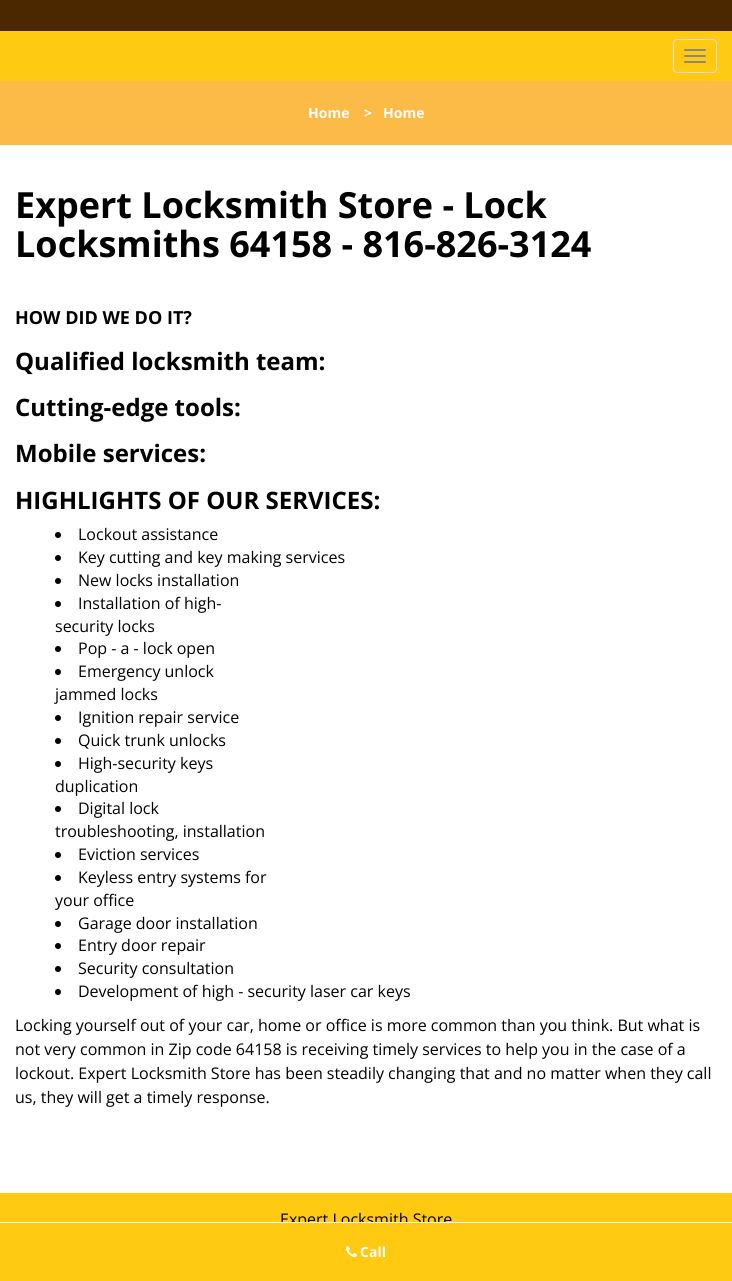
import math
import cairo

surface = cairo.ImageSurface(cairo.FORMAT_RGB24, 732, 1281)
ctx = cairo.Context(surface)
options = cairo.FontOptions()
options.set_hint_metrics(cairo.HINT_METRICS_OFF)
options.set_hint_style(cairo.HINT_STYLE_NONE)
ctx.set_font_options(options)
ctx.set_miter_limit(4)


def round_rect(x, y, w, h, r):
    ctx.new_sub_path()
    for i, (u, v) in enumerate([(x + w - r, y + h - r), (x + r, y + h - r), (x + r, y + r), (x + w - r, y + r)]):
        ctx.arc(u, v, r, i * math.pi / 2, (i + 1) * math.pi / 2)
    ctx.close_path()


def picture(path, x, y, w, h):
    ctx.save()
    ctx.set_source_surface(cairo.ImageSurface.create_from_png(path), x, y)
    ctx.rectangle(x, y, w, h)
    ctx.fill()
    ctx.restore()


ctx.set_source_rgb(1, 1, 1)
ctx.paint()
ctx.set_source_rgb(0.298, 0.157, 0.004)
ctx.rectangle(0, 0, 732, 31)
ctx.fill()
ctx.set_source_rgb(1, 0.792, 0.067)
ctx.rectangle(0, 31, 732, 50)
ctx.fill()
round_rect(673.5, 39.5, 43, 33, 3.5)
ctx.set_source_rgb(0.867, 0.867, 0.867)
ctx.set_line_width(1)
ctx.stroke()
ctx.set_source_rgb(0.533, 0.533, 0.533)
round_rect(684, 49, 22, 2, 1)
ctx.fill()
round_rect(684, 55, 22, 2, 1)
ctx.fill()
round_rect(684, 61, 22, 2, 1)
ctx.fill()
ctx.set_source_rgb(0.988, 0.729, 0.278)
ctx.rectangle(0, 81, 732, 64)
ctx.fill()
ctx.select_font_face("Open Sans", cairo.FONT_SLANT_NORMAL, cairo.FONT_WEIGHT_BOLD)
ctx.set_font_size(14)
ctx.set_source_rgb(1, 1, 1)
ctx.move_to(308, 118)
ctx.show_text("Home")
ctx.move_to(364, 118)
ctx.show_text(">")
ctx.move_to(383, 118)
ctx.show_text("Home")
ctx.set_font_size(36)
ctx.set_source_rgb(0, 0, 0)
ctx.move_to(15, 218)
ctx.show_text("Expert Locksmith Store - Lock")
ctx.move_to(15, 257)
ctx.show_text("Locksmiths 64158 - 816-826-3124")
ctx.set_font_size(18)
ctx.move_to(15, 324)
ctx.show_text("HOW DID WE DO IT?")
ctx.set_font_size(24)
ctx.move_to(15, 370)
ctx.show_text("Qualified locksmith team:")
ctx.move_to(15, 416)
ctx.show_text("Cutting-edge tools:")
ctx.move_to(15, 462)
ctx.show_text("Mobile services:")
ctx.move_to(15, 509)
ctx.show_text("HIGHLIGHTS OF OUR SERVICES:")
ctx.new_path()
ctx.arc(58, 535, 3, 0, 2 * math.pi)
ctx.fill()
ctx.select_font_face("Open Sans")
ctx.set_font_size(16)
ctx.move_to(78, 540)
ctx.show_text("Lockout assistance")
ctx.new_path()
ctx.arc(58, 558, 3, 0, 2 * math.pi)
ctx.fill()
ctx.move_to(78, 563)
ctx.show_text("Key cutting and key making services")
ctx.new_path()
ctx.arc(58, 581, 3, 0, 2 * math.pi)
ctx.fill()
ctx.move_to(78, 586)
ctx.show_text("New locks installation")
ctx.new_path()
ctx.arc(58, 604, 3, 0, 2 * math.pi)
ctx.fill()
ctx.move_to(78, 609)
ctx.show_text("Installation of high-")
ctx.move_to(55, 632)
ctx.show_text("security locks")
ctx.new_path()
ctx.arc(58, 649, 3, 0, 2 * math.pi)
ctx.fill()
ctx.move_to(78, 654)
ctx.show_text("Pop - a - lock open")
ctx.new_path()
ctx.arc(58, 672, 3, 0, 2 * math.pi)
ctx.fill()
ctx.move_to(78, 677)
ctx.show_text("Emergency unlock")
ctx.move_to(55, 700)
ctx.show_text("jammed locks")
ctx.new_path()
ctx.arc(58, 718, 3, 0, 2 * math.pi)
ctx.fill()
ctx.move_to(78, 723)
ctx.show_text("Ignition repair service")
ctx.new_path()
ctx.arc(58, 741, 3, 0, 2 * math.pi)
ctx.fill()
ctx.move_to(78, 746)
ctx.show_text("Quick trunk unlocks")
ctx.new_path()
ctx.arc(58, 764, 3, 0, 2 * math.pi)
ctx.fill()
ctx.move_to(78, 769)
ctx.show_text("High-security keys")
ctx.move_to(55, 792)
ctx.show_text("duplication")
ctx.new_path()
ctx.arc(58, 809, 3, 0, 2 * math.pi)
ctx.fill()
ctx.move_to(78, 814)
ctx.show_text("Digital lock")
ctx.move_to(55, 837)
ctx.show_text("troubleshooting, installation")
ctx.new_path()
ctx.arc(58, 855, 3, 0, 2 * math.pi)
ctx.fill()
ctx.move_to(78, 860)
ctx.show_text("Eviction services")
ctx.new_path()
ctx.arc(58, 878, 3, 0, 2 * math.pi)
ctx.fill()
ctx.move_to(78, 883)
ctx.show_text("Keyless entry systems for")
ctx.move_to(55, 906)
ctx.show_text("your office")
ctx.new_path()
ctx.arc(58, 924, 3, 0, 2 * math.pi)
ctx.fill()
ctx.move_to(78, 929)
ctx.show_text("Garage door installation")
ctx.new_path()
ctx.arc(58, 946, 3, 0, 2 * math.pi)
ctx.fill()
ctx.move_to(78, 951)
ctx.show_text("Entry door repair")
ctx.new_path()
ctx.arc(58, 969, 3, 0, 2 * math.pi)
ctx.fill()
ctx.move_to(78, 974)
ctx.show_text("Security consultation")
ctx.new_path()
ctx.arc(58, 992, 3, 0, 2 * math.pi)
ctx.fill()
ctx.move_to(78, 997)
ctx.show_text("Development of high - security laser car keys")
ctx.move_to(15, 1031)
ctx.show_text("Locking yourself out of your car, home or office is more common than you think. But what is")
ctx.move_to(15, 1055)
ctx.show_text("not very common in Zip code 64158 is receiving timely services to help you in the case of a")
ctx.move_to(15, 1079)
ctx.show_text("lockout. Expert Locksmith Store has been steadily changing that and no matter when they call")
ctx.move_to(15, 1103)
ctx.show_text("us, they will get a timely response.")
ctx.set_source_rgb(1, 0.792, 0.067)
ctx.rectangle(0, 1193, 732, 29)
ctx.fill()
ctx.set_source_rgb(0, 0, 0)
ctx.move_to(280, 1225)
ctx.show_text("Expert Locksmith Store")
ctx.set_source_rgb(1, 0.792, 0.067)
ctx.rectangle(0, 1223, 732, 58)
ctx.fill()
ctx.set_source_rgb(1, 1, 1)
ctx.rectangle(281, 1222, 165, 1)
ctx.fill()
picture("img1.png", 346, 1246, 11, 11)
ctx.select_font_face("Open Sans", cairo.FONT_SLANT_NORMAL, cairo.FONT_WEIGHT_BOLD)
ctx.set_font_size(14)
ctx.move_to(360, 1257)
ctx.show_text("Call")
surface.write_to_png("page.png")
